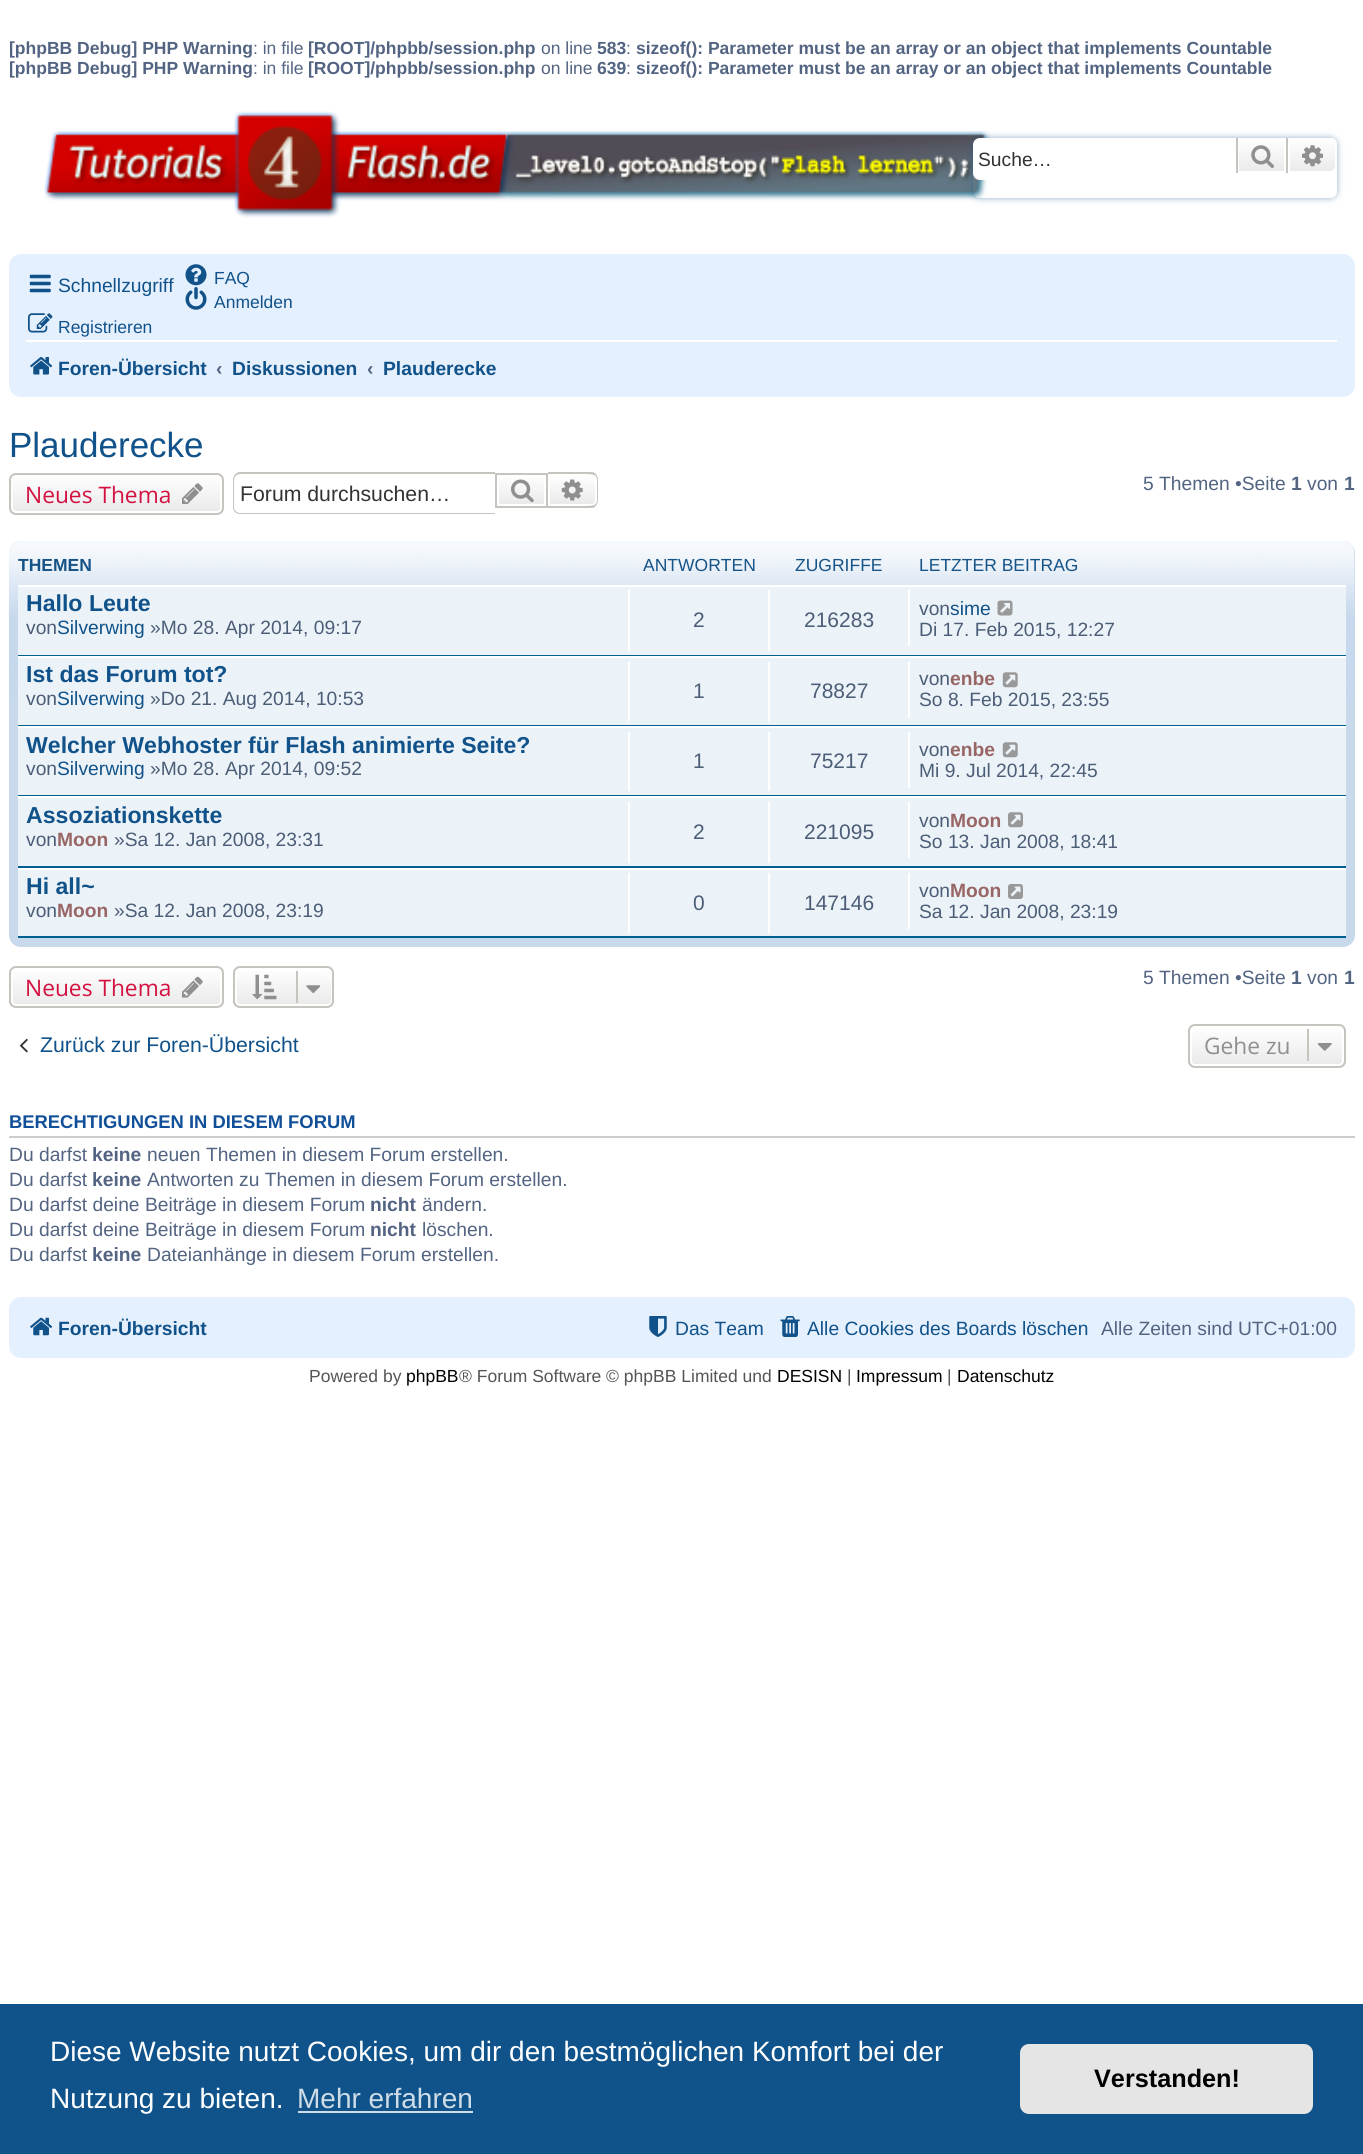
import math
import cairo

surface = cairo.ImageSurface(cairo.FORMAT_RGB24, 1363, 2154)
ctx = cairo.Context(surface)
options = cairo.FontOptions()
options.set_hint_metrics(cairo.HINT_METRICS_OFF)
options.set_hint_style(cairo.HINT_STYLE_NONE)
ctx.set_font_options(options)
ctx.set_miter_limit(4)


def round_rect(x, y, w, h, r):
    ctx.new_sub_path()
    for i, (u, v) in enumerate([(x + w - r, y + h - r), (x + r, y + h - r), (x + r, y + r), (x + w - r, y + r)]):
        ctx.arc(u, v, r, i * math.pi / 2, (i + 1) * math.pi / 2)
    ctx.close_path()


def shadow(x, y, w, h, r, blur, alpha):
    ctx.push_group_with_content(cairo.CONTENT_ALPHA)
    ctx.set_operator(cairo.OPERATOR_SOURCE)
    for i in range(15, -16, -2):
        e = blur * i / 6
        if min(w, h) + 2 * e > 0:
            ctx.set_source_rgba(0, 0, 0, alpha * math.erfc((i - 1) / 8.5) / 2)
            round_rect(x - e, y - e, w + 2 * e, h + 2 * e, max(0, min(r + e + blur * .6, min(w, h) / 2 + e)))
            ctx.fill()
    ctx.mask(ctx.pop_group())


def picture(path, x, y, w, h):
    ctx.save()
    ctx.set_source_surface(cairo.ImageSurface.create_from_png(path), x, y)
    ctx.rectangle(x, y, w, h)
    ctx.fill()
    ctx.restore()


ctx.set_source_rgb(1, 1, 1)
ctx.paint()
ctx.select_font_face("Liberation Sans", cairo.FONT_SLANT_NORMAL, cairo.FONT_WEIGHT_BOLD)
ctx.set_font_size(17.5)
ctx.set_source_rgb(0.325, 0.392, 0.51)
ctx.move_to(9, 54)
ctx.show_text("[phpBB Debug] PHP Warning")
ctx.select_font_face("Liberation Sans")
ctx.move_to(253, 54)
ctx.show_text(": in file")
ctx.select_font_face("Liberation Sans", cairo.FONT_SLANT_NORMAL, cairo.FONT_WEIGHT_BOLD)
ctx.move_to(308, 54)
ctx.show_text("[ROOT]/phpbb/session.php")
ctx.select_font_face("Liberation Sans")
ctx.move_to(541, 54)
ctx.show_text("on line")
ctx.select_font_face("Liberation Sans", cairo.FONT_SLANT_NORMAL, cairo.FONT_WEIGHT_BOLD)
ctx.move_to(597, 54)
ctx.show_text("583")
ctx.select_font_face("Liberation Sans")
ctx.move_to(626, 54)
ctx.show_text(":")
ctx.select_font_face("Liberation Sans", cairo.FONT_SLANT_NORMAL, cairo.FONT_WEIGHT_BOLD)
ctx.move_to(636, 54)
ctx.show_text("sizeof(): Parameter must be an array or an object that implements Countable")
ctx.move_to(9, 74)
ctx.show_text("[phpBB Debug] PHP Warning")
ctx.select_font_face("Liberation Sans")
ctx.move_to(253, 74)
ctx.show_text(": in file")
ctx.select_font_face("Liberation Sans", cairo.FONT_SLANT_NORMAL, cairo.FONT_WEIGHT_BOLD)
ctx.move_to(308, 74)
ctx.show_text("[ROOT]/phpbb/session.php")
ctx.select_font_face("Liberation Sans")
ctx.move_to(541, 74)
ctx.show_text("on line")
ctx.select_font_face("Liberation Sans", cairo.FONT_SLANT_NORMAL, cairo.FONT_WEIGHT_BOLD)
ctx.move_to(597, 74)
ctx.show_text("639")
ctx.select_font_face("Liberation Sans")
ctx.move_to(626, 74)
ctx.show_text(":")
ctx.select_font_face("Liberation Sans", cairo.FONT_SLANT_NORMAL, cairo.FONT_WEIGHT_BOLD)
ctx.move_to(636, 74)
ctx.show_text("sizeof(): Parameter must be an array or an object that implements Countable")
picture("img1.png", 44, 111, 947, 107)
ctx.save()
ctx.set_fill_rule(cairo.FILL_RULE_EVEN_ODD)
ctx.new_path()
ctx.move_to(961, 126)
ctx.line_to(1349, 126)
ctx.line_to(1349, 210)
ctx.line_to(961, 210)
ctx.close_path()
ctx.move_to(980, 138)
ctx.line_to(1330, 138)
ctx.curve_to(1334, 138, 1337, 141, 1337, 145)
ctx.line_to(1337, 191)
ctx.curve_to(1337, 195, 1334, 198, 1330, 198)
ctx.line_to(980, 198)
ctx.curve_to(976, 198, 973, 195, 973, 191)
ctx.line_to(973, 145)
ctx.curve_to(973, 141, 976, 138, 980, 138)
ctx.close_path()
ctx.clip()
ctx.set_source_rgb(0.059, 0.318, 0.553)
shadow(973, 138, 364, 60, 7, 3.5, 0.45)
ctx.restore()
ctx.set_source_rgb(1, 1, 1)
ctx.new_path()
ctx.move_to(980, 138)
ctx.line_to(1236, 138)
ctx.line_to(1236, 180)
ctx.line_to(980, 180)
ctx.curve_to(976, 180, 973, 177, 973, 173)
ctx.line_to(973, 145)
ctx.curve_to(973, 141, 976, 138, 980, 138)
ctx.close_path()
ctx.fill()
ctx.select_font_face("Liberation Sans")
ctx.set_font_size(19.25)
ctx.set_source_rgb(0.2, 0.2, 0.2)
ctx.move_to(978, 166)
ctx.show_text("Suche…")
gradient = cairo.LinearGradient(1262, 138, 1262, 173)
gradient.add_color_stop_rgba(0, 1, 1, 1, 1)
gradient.add_color_stop_rgba(1, 0.914, 0.914, 0.914, 1)
ctx.set_source(gradient)
ctx.rectangle(1239, 142, 45, 29)
ctx.fill()
ctx.rectangle(1238, 139, 47, 33)
ctx.set_source_rgb(1, 1, 1)
ctx.stroke()
ctx.set_source_rgb(0.78, 0.765, 0.749)
ctx.rectangle(1286, 138, 2, 35)
ctx.fill()
ctx.rectangle(1236, 138, 2, 35)
ctx.fill()
picture("img2.png", 1251, 145, 23, 23)
gradient = cairo.LinearGradient(1313, 138, 1313, 173)
gradient.add_color_stop_rgba(0, 1, 1, 1, 1)
gradient.add_color_stop_rgba(1, 0.914, 0.914, 0.914, 1)
ctx.set_source(gradient)
ctx.new_path()
ctx.move_to(1289, 139)
ctx.line_to(1330, 139)
ctx.curve_to(1333.5, 139, 1336, 141.5, 1336, 145)
ctx.line_to(1336, 166)
ctx.curve_to(1336, 169.5, 1333.5, 172, 1330, 172)
ctx.line_to(1289, 172)
ctx.close_path()
ctx.fill_preserve()
ctx.set_source_rgb(1, 1, 1)
ctx.stroke()
picture("img3.png", 1302, 145, 21, 22)
ctx.set_source_rgb(0.898, 0.941, 0.996)
round_rect(9, 254, 1346, 143, 12)
ctx.fill()
picture("img4.png", 185, 264, 22, 22)
ctx.set_font_size(17.5)
ctx.set_source_rgb(0.063, 0.322, 0.537)
ctx.move_to(214, 284)
ctx.show_text("FAQ")
picture("img5.png", 185, 287, 22, 23)
ctx.move_to(214, 308)
ctx.show_text("Anmelden")
picture("img6.png", 28, 313, 25, 20)
ctx.move_to(58, 333)
ctx.show_text("Registrieren")
picture("img7.png", 29, 274, 22, 19)
ctx.set_font_size(19.25)
ctx.move_to(58, 292)
ctx.show_text("Schnellzugriff")
ctx.set_source_rgb(1, 1, 1)
ctx.rectangle(26, 340, 1311, 2)
ctx.fill()
picture("img8.png", 30, 357, 23, 18)
ctx.select_font_face("Liberation Sans", cairo.FONT_SLANT_NORMAL, cairo.FONT_WEIGHT_BOLD)
ctx.set_source_rgb(0.063, 0.322, 0.537)
ctx.move_to(58, 375)
ctx.show_text("Foren-Übersicht")
ctx.set_source_rgb(0.325, 0.392, 0.51)
ctx.move_to(216, 375)
ctx.show_text("‹")
ctx.set_source_rgb(0.063, 0.322, 0.537)
ctx.move_to(232, 375)
ctx.show_text("Diskussionen")
ctx.set_source_rgb(0.325, 0.392, 0.51)
ctx.move_to(367, 375)
ctx.show_text("‹")
ctx.set_source_rgb(0.063, 0.322, 0.537)
ctx.move_to(383, 375)
ctx.show_text("Plauderecke")
ctx.select_font_face("Liberation Sans")
ctx.set_font_size(35)
ctx.move_to(9, 457)
ctx.show_text("Plauderecke")
ctx.set_font_size(19.25)
ctx.set_source_rgb(0.325, 0.392, 0.51)
ctx.move_to(1143, 490)
ctx.show_text("5 Themen •Seite")
ctx.select_font_face("Liberation Sans", cairo.FONT_SLANT_NORMAL, cairo.FONT_WEIGHT_BOLD)
ctx.move_to(1291, 490)
ctx.show_text("1")
ctx.select_font_face("Liberation Sans")
ctx.move_to(1307, 490)
ctx.show_text("von")
ctx.select_font_face("Liberation Sans", cairo.FONT_SLANT_NORMAL, cairo.FONT_WEIGHT_BOLD)
ctx.move_to(1344, 490)
ctx.show_text("1")
ctx.save()
round_rect(9, 473, 215, 42, 7)
ctx.clip()
gradient = cairo.LinearGradient(116, 474, 116, 513)
gradient.add_color_stop_rgba(0, 1, 1, 1, 1)
gradient.add_color_stop_rgba(1, 0.914, 0.914, 0.914, 1)
ctx.set_source(gradient)
ctx.rectangle(9, 474, 215, 39)
ctx.fill()
ctx.restore()
round_rect(12, 475, 209, 37, 4)
ctx.set_source_rgb(1, 1, 1)
ctx.stroke()
round_rect(10, 474, 213, 40, 6)
ctx.set_source_rgb(0.78, 0.765, 0.749)
ctx.stroke()
ctx.select_font_face("Open Sans")
ctx.set_font_size(22.75)
ctx.set_source_rgb(0.827, 0.067, 0.255)
ctx.move_to(25, 503)
ctx.show_text("Neues Thema")
picture("img9.png", 182, 483, 21, 21)
ctx.set_source_rgb(0.78, 0.765, 0.749)
ctx.set_fill_rule(cairo.FILL_RULE_EVEN_ODD)
ctx.new_path()
ctx.move_to(240, 472)
ctx.line_to(495, 472)
ctx.line_to(495, 514)
ctx.line_to(240, 514)
ctx.curve_to(236, 514, 233, 511, 233, 508)
ctx.line_to(233, 480)
ctx.curve_to(233, 476, 236, 472, 240, 472)
ctx.close_path()
ctx.move_to(240, 474)
ctx.line_to(495, 474)
ctx.line_to(495, 513)
ctx.line_to(240, 513)
ctx.curve_to(237, 513, 234, 510, 234, 508)
ctx.line_to(234, 480)
ctx.curve_to(234, 477, 237, 474, 240, 474)
ctx.close_path()
ctx.fill()
ctx.select_font_face("Liberation Sans")
ctx.set_font_size(21.25)
ctx.set_source_rgb(0.2, 0.2, 0.2)
ctx.move_to(240, 501)
ctx.show_text("Forum durchsuchen…")
gradient = cairo.LinearGradient(522, 474, 522, 506)
gradient.add_color_stop_rgba(0, 1, 1, 1, 1)
gradient.add_color_stop_rgba(1, 0.914, 0.914, 0.914, 1)
ctx.set_source(gradient)
ctx.rectangle(499, 478, 45, 26)
ctx.fill()
ctx.rectangle(496, 474, 51, 33)
ctx.set_source_rgb(0.78, 0.765, 0.749)
ctx.stroke()
picture("img10.png", 511, 479, 23, 24)
gradient = cairo.LinearGradient(572, 474, 572, 506)
gradient.add_color_stop_rgba(0, 1, 1, 1, 1)
gradient.add_color_stop_rgba(1, 0.914, 0.914, 0.914, 1)
ctx.set_source(gradient)
ctx.new_path()
ctx.move_to(549, 475)
ctx.line_to(592, 475)
ctx.curve_to(594, 475, 596, 477, 596, 479)
ctx.line_to(596, 501)
ctx.curve_to(596, 503, 594, 505, 592, 505)
ctx.line_to(549, 505)
ctx.close_path()
ctx.fill_preserve()
ctx.set_source_rgb(1, 1, 1)
ctx.stroke()
ctx.set_source_rgb(0.78, 0.765, 0.749)
ctx.new_path()
ctx.move_to(548, 472)
ctx.line_to(592, 472)
ctx.curve_to(595, 472, 598, 476, 598, 480)
ctx.line_to(598, 500)
ctx.curve_to(598, 504, 595, 508, 592, 508)
ctx.line_to(548, 508)
ctx.close_path()
ctx.move_to(548, 474)
ctx.line_to(584, 474)
ctx.curve_to(599, 474, 597, 476, 597, 490)
ctx.curve_to(597, 504, 599, 506, 584, 506)
ctx.line_to(548, 506)
ctx.close_path()
ctx.fill()
picture("img11.png", 561, 479, 22, 22)
ctx.set_source_rgb(0.784, 0.851, 0.925)
round_rect(9, 541, 1346, 406, 12)
ctx.fill()
picture("img12.png", 8, 541, 1347, 160)
ctx.select_font_face("Liberation Sans", cairo.FONT_SLANT_NORMAL, cairo.FONT_WEIGHT_BOLD)
ctx.set_font_size(17.5)
ctx.set_source_rgb(0.086, 0.325, 0.529)
ctx.move_to(18, 571)
ctx.show_text("THEMEN")
ctx.select_font_face("Liberation Sans")
ctx.move_to(643, 571)
ctx.show_text("ANTWORTEN")
ctx.move_to(795, 571)
ctx.show_text("ZUGRIFFE")
ctx.move_to(919, 571)
ctx.show_text("LETZTER BEITRAG")
ctx.set_source_rgb(0.925, 0.953, 0.969)
ctx.rectangle(18, 587, 1328, 68)
ctx.fill()
ctx.set_source_rgb(1, 1, 1)
ctx.rectangle(18, 585, 1328, 2)
ctx.fill()
ctx.set_source_rgb(0, 0.376, 0.561)
ctx.rectangle(18, 655, 1328, 1)
ctx.fill()
ctx.select_font_face("Liberation Sans", cairo.FONT_SLANT_NORMAL, cairo.FONT_WEIGHT_BOLD)
ctx.set_font_size(23.1)
ctx.set_source_rgb(0.063, 0.322, 0.537)
ctx.move_to(26, 611)
ctx.show_text("Hallo Leute")
ctx.select_font_face("Liberation Sans")
ctx.set_font_size(19.25)
ctx.set_source_rgb(0.298, 0.365, 0.467)
ctx.move_to(26, 634)
ctx.show_text("von")
ctx.set_source_rgb(0.063, 0.322, 0.537)
ctx.move_to(57, 634)
ctx.show_text("Silverwing")
ctx.set_source_rgb(0.298, 0.365, 0.467)
ctx.move_to(150, 634)
ctx.show_text("»Mo 28. Apr 2014, 09:17")
ctx.set_source_rgb(1, 1, 1)
ctx.rectangle(628, 590, 2, 61)
ctx.fill()
ctx.set_font_size(21)
ctx.set_source_rgb(0.298, 0.365, 0.467)
ctx.move_to(693, 627)
ctx.show_text("2")
ctx.set_source_rgb(1, 1, 1)
ctx.rectangle(768, 590, 2, 61)
ctx.fill()
ctx.set_source_rgb(0.298, 0.365, 0.467)
ctx.move_to(804, 627)
ctx.show_text("216283")
ctx.set_source_rgb(1, 1, 1)
ctx.rectangle(908, 590, 2, 56)
ctx.fill()
ctx.set_font_size(19.25)
ctx.set_source_rgb(0.298, 0.365, 0.467)
ctx.move_to(919, 615)
ctx.show_text("von")
ctx.set_source_rgb(0.063, 0.322, 0.537)
ctx.move_to(950, 615)
ctx.show_text("sime")
picture("img13.png", 997, 600, 16, 16)
ctx.set_source_rgb(0.298, 0.365, 0.467)
ctx.move_to(919, 636)
ctx.show_text("Di 17. Feb 2015, 12:27")
ctx.set_source_rgb(0.925, 0.953, 0.969)
ctx.rectangle(18, 658, 1328, 67)
ctx.fill()
ctx.set_source_rgb(1, 1, 1)
ctx.rectangle(18, 656, 1328, 2)
ctx.fill()
ctx.set_source_rgb(0, 0.376, 0.561)
ctx.rectangle(18, 725, 1328, 1)
ctx.fill()
ctx.select_font_face("Liberation Sans", cairo.FONT_SLANT_NORMAL, cairo.FONT_WEIGHT_BOLD)
ctx.set_font_size(23.1)
ctx.set_source_rgb(0.063, 0.322, 0.537)
ctx.move_to(26, 682)
ctx.show_text("Ist das Forum tot?")
ctx.select_font_face("Liberation Sans")
ctx.set_font_size(19.25)
ctx.set_source_rgb(0.298, 0.365, 0.467)
ctx.move_to(26, 705)
ctx.show_text("von")
ctx.set_source_rgb(0.063, 0.322, 0.537)
ctx.move_to(57, 705)
ctx.show_text("Silverwing")
ctx.set_source_rgb(0.298, 0.365, 0.467)
ctx.move_to(150, 705)
ctx.show_text("»Do 21. Aug 2014, 10:53")
ctx.set_source_rgb(1, 1, 1)
ctx.rectangle(628, 662, 2, 59)
ctx.fill()
ctx.set_font_size(21)
ctx.set_source_rgb(0.298, 0.365, 0.467)
ctx.move_to(693, 698)
ctx.show_text("1")
ctx.set_source_rgb(1, 1, 1)
ctx.rectangle(768, 662, 2, 59)
ctx.fill()
ctx.set_source_rgb(0.298, 0.365, 0.467)
ctx.move_to(810, 698)
ctx.show_text("78827")
ctx.set_source_rgb(1, 1, 1)
ctx.rectangle(908, 662, 2, 56)
ctx.fill()
ctx.set_font_size(19.25)
ctx.set_source_rgb(0.298, 0.365, 0.467)
ctx.move_to(919, 685)
ctx.show_text("von")
ctx.select_font_face("Liberation Sans", cairo.FONT_SLANT_NORMAL, cairo.FONT_WEIGHT_BOLD)
ctx.set_source_rgb(0.6, 0.4, 0.4)
ctx.move_to(950, 685)
ctx.show_text("enbe")
picture("img14.png", 1002, 672, 16, 16)
ctx.select_font_face("Liberation Sans")
ctx.set_source_rgb(0.298, 0.365, 0.467)
ctx.move_to(919, 706)
ctx.show_text("So 8. Feb 2015, 23:55")
ctx.set_source_rgb(0.925, 0.953, 0.969)
ctx.rectangle(18, 728, 1328, 67)
ctx.fill()
ctx.set_source_rgb(1, 1, 1)
ctx.rectangle(18, 726, 1328, 2)
ctx.fill()
ctx.set_source_rgb(0, 0.376, 0.561)
ctx.rectangle(18, 795, 1328, 1)
ctx.fill()
ctx.select_font_face("Liberation Sans", cairo.FONT_SLANT_NORMAL, cairo.FONT_WEIGHT_BOLD)
ctx.set_font_size(23.1)
ctx.set_source_rgb(0.063, 0.322, 0.537)
ctx.move_to(26, 753)
ctx.show_text("Welcher Webhoster für Flash animierte Seite?")
ctx.select_font_face("Liberation Sans")
ctx.set_font_size(19.25)
ctx.set_source_rgb(0.298, 0.365, 0.467)
ctx.move_to(26, 775)
ctx.show_text("von")
ctx.set_source_rgb(0.063, 0.322, 0.537)
ctx.move_to(57, 775)
ctx.show_text("Silverwing")
ctx.set_source_rgb(0.298, 0.365, 0.467)
ctx.move_to(150, 775)
ctx.show_text("»Mo 28. Apr 2014, 09:52")
ctx.set_source_rgb(1, 1, 1)
ctx.rectangle(628, 732, 2, 59)
ctx.fill()
ctx.set_font_size(21)
ctx.set_source_rgb(0.298, 0.365, 0.467)
ctx.move_to(693, 768)
ctx.show_text("1")
ctx.set_source_rgb(1, 1, 1)
ctx.rectangle(768, 732, 2, 59)
ctx.fill()
ctx.set_source_rgb(0.298, 0.365, 0.467)
ctx.move_to(810, 768)
ctx.show_text("75217")
ctx.set_source_rgb(1, 1, 1)
ctx.rectangle(908, 732, 2, 56)
ctx.fill()
ctx.set_font_size(19.25)
ctx.set_source_rgb(0.298, 0.365, 0.467)
ctx.move_to(919, 756)
ctx.show_text("von")
ctx.select_font_face("Liberation Sans", cairo.FONT_SLANT_NORMAL, cairo.FONT_WEIGHT_BOLD)
ctx.set_source_rgb(0.6, 0.4, 0.4)
ctx.move_to(950, 756)
ctx.show_text("enbe")
picture("img14.png", 1002, 742, 16, 16)
ctx.select_font_face("Liberation Sans")
ctx.set_source_rgb(0.298, 0.365, 0.467)
ctx.move_to(919, 777)
ctx.show_text("Mi 9. Jul 2014, 22:45")
ctx.set_source_rgb(0.925, 0.953, 0.969)
ctx.rectangle(18, 798, 1328, 68)
ctx.fill()
ctx.set_source_rgb(1, 1, 1)
ctx.rectangle(18, 796, 1328, 2)
ctx.fill()
ctx.set_source_rgb(0, 0.376, 0.561)
ctx.rectangle(18, 866, 1328, 2)
ctx.fill()
ctx.select_font_face("Liberation Sans", cairo.FONT_SLANT_NORMAL, cairo.FONT_WEIGHT_BOLD)
ctx.set_font_size(23.1)
ctx.set_source_rgb(0.063, 0.322, 0.537)
ctx.move_to(26, 823)
ctx.show_text("Assoziationskette")
ctx.select_font_face("Liberation Sans")
ctx.set_font_size(19.25)
ctx.set_source_rgb(0.298, 0.365, 0.467)
ctx.move_to(26, 846)
ctx.show_text("von")
ctx.select_font_face("Liberation Sans", cairo.FONT_SLANT_NORMAL, cairo.FONT_WEIGHT_BOLD)
ctx.set_source_rgb(0.6, 0.4, 0.4)
ctx.move_to(57, 846)
ctx.show_text("Moon")
ctx.select_font_face("Liberation Sans")
ctx.set_source_rgb(0.298, 0.365, 0.467)
ctx.move_to(114, 846)
ctx.show_text("»Sa 12. Jan 2008, 23:31")
ctx.set_source_rgb(1, 1, 1)
ctx.rectangle(628, 802, 2, 61)
ctx.fill()
ctx.set_font_size(21)
ctx.set_source_rgb(0.298, 0.365, 0.467)
ctx.move_to(693, 839)
ctx.show_text("2")
ctx.set_source_rgb(1, 1, 1)
ctx.rectangle(768, 802, 2, 61)
ctx.fill()
ctx.set_source_rgb(0.298, 0.365, 0.467)
ctx.move_to(804, 839)
ctx.show_text("221095")
ctx.set_source_rgb(1, 1, 1)
ctx.rectangle(908, 802, 2, 56)
ctx.fill()
ctx.set_font_size(19.25)
ctx.set_source_rgb(0.298, 0.365, 0.467)
ctx.move_to(919, 827)
ctx.show_text("von")
ctx.select_font_face("Liberation Sans", cairo.FONT_SLANT_NORMAL, cairo.FONT_WEIGHT_BOLD)
ctx.set_source_rgb(0.6, 0.4, 0.4)
ctx.move_to(950, 827)
ctx.show_text("Moon")
picture("img15.png", 1008, 812, 15, 16)
ctx.select_font_face("Liberation Sans")
ctx.set_source_rgb(0.298, 0.365, 0.467)
ctx.move_to(919, 848)
ctx.show_text("So 13. Jan 2008, 18:41")
ctx.set_source_rgb(0.925, 0.953, 0.969)
ctx.rectangle(18, 870, 1328, 66)
ctx.fill()
ctx.set_source_rgb(1, 1, 1)
ctx.rectangle(18, 868, 1328, 2)
ctx.fill()
ctx.set_source_rgb(0, 0.376, 0.561)
ctx.rectangle(18, 936, 1328, 2)
ctx.fill()
ctx.select_font_face("Liberation Sans", cairo.FONT_SLANT_NORMAL, cairo.FONT_WEIGHT_BOLD)
ctx.set_font_size(23.1)
ctx.set_source_rgb(0.063, 0.322, 0.537)
ctx.move_to(26, 894)
ctx.show_text("Hi all~")
ctx.select_font_face("Liberation Sans")
ctx.set_font_size(19.25)
ctx.set_source_rgb(0.298, 0.365, 0.467)
ctx.move_to(26, 917)
ctx.show_text("von")
ctx.select_font_face("Liberation Sans", cairo.FONT_SLANT_NORMAL, cairo.FONT_WEIGHT_BOLD)
ctx.set_source_rgb(0.6, 0.4, 0.4)
ctx.move_to(57, 917)
ctx.show_text("Moon")
ctx.select_font_face("Liberation Sans")
ctx.set_source_rgb(0.298, 0.365, 0.467)
ctx.move_to(114, 917)
ctx.show_text("»Sa 12. Jan 2008, 23:19")
ctx.set_source_rgb(1, 1, 1)
ctx.rectangle(628, 873, 2, 60)
ctx.fill()
ctx.set_font_size(21)
ctx.set_source_rgb(0.298, 0.365, 0.467)
ctx.move_to(693, 910)
ctx.show_text("0")
ctx.set_source_rgb(1, 1, 1)
ctx.rectangle(768, 873, 2, 60)
ctx.fill()
ctx.set_source_rgb(0.298, 0.365, 0.467)
ctx.move_to(804, 910)
ctx.show_text("147146")
ctx.set_source_rgb(1, 1, 1)
ctx.rectangle(908, 873, 2, 56)
ctx.fill()
ctx.set_font_size(19.25)
ctx.set_source_rgb(0.298, 0.365, 0.467)
ctx.move_to(919, 897)
ctx.show_text("von")
ctx.select_font_face("Liberation Sans", cairo.FONT_SLANT_NORMAL, cairo.FONT_WEIGHT_BOLD)
ctx.set_source_rgb(0.6, 0.4, 0.4)
ctx.move_to(950, 897)
ctx.show_text("Moon")
picture("img16.png", 1008, 884, 15, 15)
ctx.select_font_face("Liberation Sans")
ctx.set_source_rgb(0.298, 0.365, 0.467)
ctx.move_to(919, 918)
ctx.show_text("Sa 12. Jan 2008, 23:19")
ctx.save()
ctx.set_fill_rule(cairo.FILL_RULE_WINDING)
round_rect(9, 966, 215, 42, 7)
ctx.clip()
gradient = cairo.LinearGradient(116, 968, 116, 1006)
gradient.add_color_stop_rgba(0, 1, 1, 1, 1)
gradient.add_color_stop_rgba(1, 0.914, 0.914, 0.914, 1)
ctx.set_source(gradient)
ctx.rectangle(9, 968, 215, 38)
ctx.fill()
ctx.restore()
round_rect(12, 969, 209, 36, 4)
ctx.set_source_rgb(1, 1, 1)
ctx.stroke()
round_rect(10, 967, 213, 40, 6)
ctx.set_source_rgb(0.78, 0.765, 0.749)
ctx.stroke()
ctx.select_font_face("Open Sans")
ctx.set_font_size(22.75)
ctx.set_source_rgb(0.827, 0.067, 0.255)
ctx.move_to(25, 996)
ctx.show_text("Neues Thema")
picture("img17.png", 182, 976, 21, 22)
ctx.save()
ctx.set_fill_rule(cairo.FILL_RULE_WINDING)
round_rect(233, 966, 101, 42, 7)
ctx.clip()
gradient = cairo.LinearGradient(284, 968, 284, 1006)
gradient.add_color_stop_rgba(0, 1, 1, 1, 1)
gradient.add_color_stop_rgba(1, 0.914, 0.914, 0.914, 1)
ctx.set_source(gradient)
ctx.rectangle(233, 968, 101, 38)
ctx.fill()
ctx.restore()
round_rect(236, 969, 96, 36, 4)
ctx.set_source_rgb(1, 1, 1)
ctx.stroke()
round_rect(234, 967, 99, 40, 6)
ctx.set_source_rgb(0.78, 0.765, 0.749)
ctx.stroke()
picture("img18.png", 252, 974, 25, 26)
ctx.rectangle(296, 971, 2, 32)
ctx.fill()
picture("img19.png", 306, 985, 15, 8)
ctx.select_font_face("Liberation Sans")
ctx.set_font_size(19.25)
ctx.set_source_rgb(0.325, 0.392, 0.51)
ctx.move_to(1143, 984)
ctx.show_text("5 Themen •Seite")
ctx.select_font_face("Liberation Sans", cairo.FONT_SLANT_NORMAL, cairo.FONT_WEIGHT_BOLD)
ctx.move_to(1291, 984)
ctx.show_text("1")
ctx.select_font_face("Liberation Sans")
ctx.move_to(1307, 984)
ctx.show_text("von")
ctx.select_font_face("Liberation Sans", cairo.FONT_SLANT_NORMAL, cairo.FONT_WEIGHT_BOLD)
ctx.move_to(1344, 984)
ctx.show_text("1")
picture("img20.png", 19, 1038, 9, 15)
ctx.select_font_face("Liberation Sans")
ctx.set_font_size(21.25)
ctx.set_source_rgb(0.063, 0.322, 0.537)
ctx.move_to(40, 1052)
ctx.show_text("Zurück zur Foren-Übersicht")
ctx.save()
ctx.set_fill_rule(cairo.FILL_RULE_WINDING)
round_rect(1188, 1024, 158, 44, 7)
ctx.clip()
gradient = cairo.LinearGradient(1267, 1026, 1267, 1066)
gradient.add_color_stop_rgba(0, 1, 1, 1, 1)
gradient.add_color_stop_rgba(1, 0.914, 0.914, 0.914, 1)
ctx.set_source(gradient)
ctx.rectangle(1188, 1026, 158, 40)
ctx.fill()
ctx.restore()
round_rect(1191, 1027, 152, 38, 4)
ctx.set_source_rgb(1, 1, 1)
ctx.stroke()
round_rect(1189, 1025, 156, 42, 6)
ctx.set_source_rgb(0.78, 0.765, 0.749)
ctx.stroke()
ctx.select_font_face("Open Sans")
ctx.set_font_size(22.75)
ctx.set_source_rgb(0.561, 0.561, 0.561)
ctx.move_to(1204, 1054)
ctx.show_text("Gehe zu")
ctx.set_source_rgb(0.78, 0.765, 0.749)
ctx.rectangle(1307, 1029, 2, 32)
ctx.fill()
picture("img21.png", 1317, 1043, 15, 8)
ctx.set_source_rgb(0.8, 0.8, 0.8)
ctx.rectangle(9, 1136, 1346, 2)
ctx.fill()
ctx.select_font_face("Liberation Sans", cairo.FONT_SLANT_NORMAL, cairo.FONT_WEIGHT_BOLD)
ctx.set_font_size(18.4)
ctx.set_source_rgb(0.067, 0.314, 0.596)
ctx.move_to(9, 1128)
ctx.show_text("BERECHTIGUNGEN IN DIESEM FORUM")
ctx.select_font_face("Liberation Sans")
ctx.set_font_size(19.25)
ctx.set_source_rgb(0.325, 0.392, 0.51)
ctx.move_to(9, 1161)
ctx.show_text("Du darfst")
ctx.select_font_face("Liberation Sans", cairo.FONT_SLANT_NORMAL, cairo.FONT_WEIGHT_BOLD)
ctx.move_to(92, 1161)
ctx.show_text("keine")
ctx.select_font_face("Liberation Sans")
ctx.move_to(147, 1161)
ctx.show_text("neuen Themen in diesem Forum erstellen.")
ctx.move_to(9, 1186)
ctx.show_text("Du darfst")
ctx.select_font_face("Liberation Sans", cairo.FONT_SLANT_NORMAL, cairo.FONT_WEIGHT_BOLD)
ctx.move_to(92, 1186)
ctx.show_text("keine")
ctx.select_font_face("Liberation Sans")
ctx.move_to(147, 1186)
ctx.show_text("Antworten zu Themen in diesem Forum erstellen.")
ctx.move_to(9, 1211)
ctx.show_text("Du darfst deine Beiträge in diesem Forum")
ctx.select_font_face("Liberation Sans", cairo.FONT_SLANT_NORMAL, cairo.FONT_WEIGHT_BOLD)
ctx.move_to(370, 1211)
ctx.show_text("nicht")
ctx.select_font_face("Liberation Sans")
ctx.move_to(422, 1211)
ctx.show_text("ändern.")
ctx.move_to(9, 1236)
ctx.show_text("Du darfst deine Beiträge in diesem Forum")
ctx.select_font_face("Liberation Sans", cairo.FONT_SLANT_NORMAL, cairo.FONT_WEIGHT_BOLD)
ctx.move_to(370, 1236)
ctx.show_text("nicht")
ctx.select_font_face("Liberation Sans")
ctx.move_to(422, 1236)
ctx.show_text("löschen.")
ctx.move_to(9, 1261)
ctx.show_text("Du darfst")
ctx.select_font_face("Liberation Sans", cairo.FONT_SLANT_NORMAL, cairo.FONT_WEIGHT_BOLD)
ctx.move_to(92, 1261)
ctx.show_text("keine")
ctx.select_font_face("Liberation Sans")
ctx.move_to(147, 1261)
ctx.show_text("Dateianhänge in diesem Forum erstellen.")
ctx.set_source_rgb(0.898, 0.941, 0.996)
round_rect(9, 1297, 1346, 61, 12)
ctx.fill()
picture("img22.png", 30, 1317, 23, 19)
ctx.select_font_face("Liberation Sans", cairo.FONT_SLANT_NORMAL, cairo.FONT_WEIGHT_BOLD)
ctx.set_source_rgb(0.063, 0.322, 0.537)
ctx.move_to(58, 1335)
ctx.show_text("Foren-Übersicht")
picture("img23.png", 649, 1316, 18, 21)
ctx.select_font_face("Liberation Sans")
ctx.move_to(675, 1335)
ctx.show_text("Das Team")
picture("img24.png", 780, 1316, 20, 21)
ctx.move_to(807, 1335)
ctx.show_text("Alle Cookies des Boards löschen")
ctx.set_source_rgb(0.325, 0.392, 0.51)
ctx.move_to(1101, 1335)
ctx.show_text("Alle Zeiten sind UTC+01:00")
ctx.set_font_size(17.5)
ctx.set_source_rgb(0.333, 0.333, 0.333)
ctx.move_to(309, 1382)
ctx.show_text("Powered by")
ctx.set_source_rgb(0, 0, 0)
ctx.move_to(406, 1382)
ctx.show_text("phpBB")
ctx.set_source_rgb(0.333, 0.333, 0.333)
ctx.move_to(459, 1382)
ctx.show_text("® Forum Software © phpBB Limited und")
ctx.set_source_rgb(0, 0, 0)
ctx.move_to(777, 1382)
ctx.show_text("DESISN")
ctx.set_source_rgb(0.333, 0.333, 0.333)
ctx.move_to(847, 1382)
ctx.show_text("|")
ctx.set_source_rgb(0, 0, 0)
ctx.move_to(856, 1382)
ctx.show_text("Impressum")
ctx.set_source_rgb(0.333, 0.333, 0.333)
ctx.move_to(947, 1382)
ctx.show_text("|")
ctx.set_source_rgb(0, 0, 0)
ctx.move_to(957, 1382)
ctx.show_text("Datenschutz")
ctx.set_source_rgb(0.059, 0.325, 0.541)
ctx.rectangle(0, 2004, 1363, 150)
ctx.fill()
ctx.set_font_size(28)
ctx.set_source_rgb(1, 1, 1)
ctx.move_to(50, 2061)
ctx.show_text("Diese Website nutzt Cookies, um dir den bestmöglichen Komfort bei der")
ctx.move_to(50, 2108)
ctx.show_text("Nutzung zu bieten.")
ctx.set_source_rgb(0.812, 0.867, 0.91)
ctx.move_to(297, 2108)
ctx.show_text("Mehr erfahren")
ctx.rectangle(298, 2111, 175, 2)
ctx.fill()
ctx.set_source_rgb(0.898, 0.898, 0.898)
round_rect(1020, 2044, 293, 70, 9)
ctx.fill()
ctx.select_font_face("Liberation Sans", cairo.FONT_SLANT_NORMAL, cairo.FONT_WEIGHT_BOLD)
ctx.set_font_size(25.25)
ctx.set_source_rgb(0, 0, 0)
ctx.move_to(1094, 2087)
ctx.show_text("Verstanden!")
surface.write_to_png("page.png")
